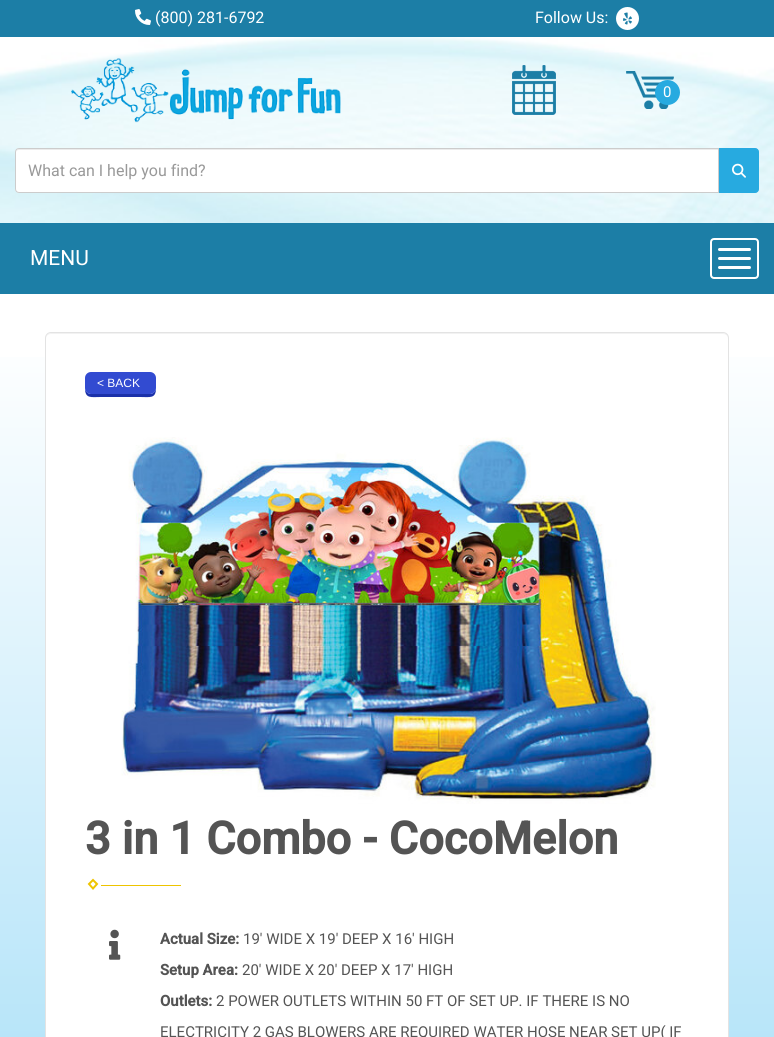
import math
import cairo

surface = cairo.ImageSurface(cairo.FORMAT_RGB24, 774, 1037)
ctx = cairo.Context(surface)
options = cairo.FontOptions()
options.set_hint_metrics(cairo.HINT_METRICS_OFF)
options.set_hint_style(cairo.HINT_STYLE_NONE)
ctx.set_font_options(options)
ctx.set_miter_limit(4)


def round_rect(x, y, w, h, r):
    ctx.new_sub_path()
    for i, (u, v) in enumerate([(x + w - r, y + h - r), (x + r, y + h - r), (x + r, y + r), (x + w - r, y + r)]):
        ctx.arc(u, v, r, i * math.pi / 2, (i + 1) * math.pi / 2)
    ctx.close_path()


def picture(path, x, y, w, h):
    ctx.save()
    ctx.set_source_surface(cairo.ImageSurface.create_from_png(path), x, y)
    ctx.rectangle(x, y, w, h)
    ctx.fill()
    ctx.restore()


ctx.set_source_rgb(1, 1, 1)
ctx.paint()
ctx.set_source_rgb(0.11, 0.494, 0.651)
ctx.rectangle(0, 0, 774, 37)
ctx.fill()
picture("img1.png", 135, 9, 16, 16)
ctx.select_font_face("Roboto")
ctx.set_font_size(16)
ctx.set_source_rgb(1, 1, 1)
ctx.move_to(155, 23)
ctx.show_text("(800) 281-6792")
ctx.move_to(535, 23)
ctx.show_text("Follow Us:")
ctx.new_path()
ctx.arc(627.5, 18.5, 10.5, 0, 2 * math.pi)
ctx.fill_preserve()
ctx.stroke()
picture("img2.png", 623, 12, 9, 13)
picture("img3.png", 0, 37, 774, 186)
picture("img4.png", 71, 58, 270, 65)
picture("img5.png", 512, 65, 44, 50)
picture("img6.png", 626, 71, 48, 38)
ctx.set_source_rgb(0.153, 0.667, 0.878)
ctx.arc(667.5, 92.5, 12.5, 0, 2 * math.pi)
ctx.fill()
ctx.set_font_size(15)
ctx.set_source_rgb(1, 1, 1)
ctx.move_to(663, 97)
ctx.show_text("0")
ctx.new_path()
ctx.move_to(19, 148)
ctx.line_to(719, 148)
ctx.line_to(719, 193)
ctx.line_to(19, 193)
ctx.curve_to(17, 193, 15, 191, 15, 189)
ctx.line_to(15, 152)
ctx.curve_to(15, 150, 17, 148, 19, 148)
ctx.close_path()
ctx.fill()
ctx.set_source_rgb(0.925, 0.925, 0.925)
ctx.new_path()
ctx.move_to(19, 150)
ctx.line_to(718, 150)
ctx.line_to(718, 149)
ctx.line_to(19, 149)
ctx.curve_to(17, 149, 16, 151, 16, 153)
ctx.curve_to(16, 151, 17, 150, 19, 150)
ctx.close_path()
ctx.fill()
ctx.new_path()
ctx.move_to(19, 148.5)
ctx.line_to(718.5, 148.5)
ctx.line_to(718.5, 192.5)
ctx.line_to(19, 192.5)
ctx.curve_to(17, 192.5, 15.5, 191, 15.5, 189)
ctx.line_to(15.5, 152)
ctx.curve_to(15.5, 150, 17, 148.5, 19, 148.5)
ctx.close_path()
ctx.set_source_rgb(0.8, 0.8, 0.8)
ctx.set_line_width(1)
ctx.stroke()
ctx.set_font_size(16)
ctx.set_source_rgb(0.6, 0.6, 0.6)
ctx.move_to(28, 176)
ctx.show_text("What can I help you find?")
ctx.set_source_rgb(0.153, 0.667, 0.878)
ctx.new_path()
ctx.move_to(719.5, 148.5)
ctx.line_to(755, 148.5)
ctx.curve_to(757, 148.5, 758.5, 150, 758.5, 152)
ctx.line_to(758.5, 189)
ctx.curve_to(758.5, 191, 757, 192.5, 755, 192.5)
ctx.line_to(719.5, 192.5)
ctx.close_path()
ctx.fill_preserve()
ctx.stroke()
picture("img7.png", 732, 163, 14, 15)
ctx.set_source_rgb(0.11, 0.494, 0.651)
ctx.rectangle(0, 223, 774, 71)
ctx.fill()
ctx.set_font_size(21)
ctx.set_source_rgb(1, 1, 1)
ctx.move_to(30, 265)
ctx.show_text("MENU")
round_rect(711, 239, 47, 39, 3)
ctx.set_line_width(2)
ctx.stroke()
round_rect(718, 248, 33, 3, 1.5)
ctx.fill()
round_rect(718, 257, 33, 3, 1.5)
ctx.fill()
round_rect(718, 266, 33, 3, 1.5)
ctx.fill()
gradient = cairo.LinearGradient(387, 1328, 387, 332)
gradient.add_color_stop_rgba(0.2, 0.686, 0.886, 0.973, 1)
gradient.add_color_stop_rgba(1, 1, 1, 1, 1)
ctx.set_source(gradient)
ctx.rectangle(0, 357, 774, 680)
ctx.fill()
ctx.set_source_rgb(1, 1, 1)
round_rect(45, 332, 684, 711, 6)
ctx.fill()
ctx.set_source_rgb(0.949, 0.949, 0.949)
ctx.new_path()
ctx.move_to(51, 334)
ctx.line_to(723, 334)
ctx.curve_to(726, 334, 728, 336, 728, 339)
ctx.line_to(728, 338)
ctx.curve_to(728, 335, 726, 333, 723, 333)
ctx.line_to(51, 333)
ctx.curve_to(48, 333, 46, 335, 46, 338)
ctx.line_to(46, 339)
ctx.curve_to(46, 336, 48, 334, 51, 334)
ctx.close_path()
ctx.fill()
round_rect(45.5, 332.5, 683, 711, 5.5)
ctx.set_source_rgb(0.89, 0.89, 0.89)
ctx.set_line_width(1)
ctx.stroke()
ctx.set_source_rgb(0.106, 0.192, 0.663)
ctx.new_path()
ctx.move_to(85, 388)
ctx.curve_to(85, 399, 91, 397, 101, 397)
ctx.line_to(140, 397)
ctx.curve_to(150, 397, 156, 399, 156, 388)
ctx.curve_to(156, 391, 153, 394, 150, 394)
ctx.line_to(91, 394)
ctx.curve_to(88, 394, 85, 391, 85, 388)
ctx.close_path()
ctx.fill()
ctx.set_source_rgb(0.196, 0.294, 0.82)
round_rect(85, 372, 71, 22, 6)
ctx.fill()
ctx.select_font_face("Liberation Sans")
ctx.set_font_size(12)
ctx.set_source_rgb(1, 1, 1)
ctx.move_to(97, 387)
ctx.show_text("< BACK")
picture("img8.png", 121, 437, 535, 367)
ctx.select_font_face("Roboto", cairo.FONT_SLANT_NORMAL, cairo.FONT_WEIGHT_BOLD)
ctx.set_font_size(45)
ctx.set_source_rgb(0.329, 0.329, 0.329)
ctx.move_to(85, 854)
ctx.show_text("3 in 1 Combo - CocoMelon")
ctx.new_path()
ctx.move_to(93, 880)
ctx.line_to(97, 884)
ctx.line_to(93, 888.5)
ctx.line_to(89, 884)
ctx.close_path()
ctx.set_source_rgb(0.933, 0.769, 0)
ctx.set_line_width(2)
ctx.stroke()
ctx.rectangle(101, 885, 80, 1)
ctx.fill()
picture("img9.png", 109, 929, 12, 31)
ctx.set_font_size(15)
ctx.set_source_rgb(0.329, 0.329, 0.329)
ctx.move_to(160, 944)
ctx.show_text("Actual Size:")
ctx.select_font_face("Roboto")
ctx.move_to(243, 944)
ctx.show_text("19' WIDE X 19' DEEP X 16' HIGH")
ctx.select_font_face("Roboto", cairo.FONT_SLANT_NORMAL, cairo.FONT_WEIGHT_BOLD)
ctx.move_to(160, 975)
ctx.show_text("Setup Area:")
ctx.select_font_face("Roboto")
ctx.move_to(242, 975)
ctx.show_text("20' WIDE X 20' DEEP X 17' HIGH")
ctx.select_font_face("Roboto", cairo.FONT_SLANT_NORMAL, cairo.FONT_WEIGHT_BOLD)
ctx.move_to(160, 1006)
ctx.show_text("Outlets:")
ctx.select_font_face("Roboto")
ctx.move_to(216, 1006)
ctx.show_text("2 POWER OUTLETS WITHIN 50 FT OF SET UP. IF THERE IS NO")
ctx.move_to(160, 1037)
ctx.show_text("ELECTRICITY 2 GAS BLOWERS ARE REQUIRED WATER HOSE NEAR SET UP( IF")
surface.write_to_png("page.png")
